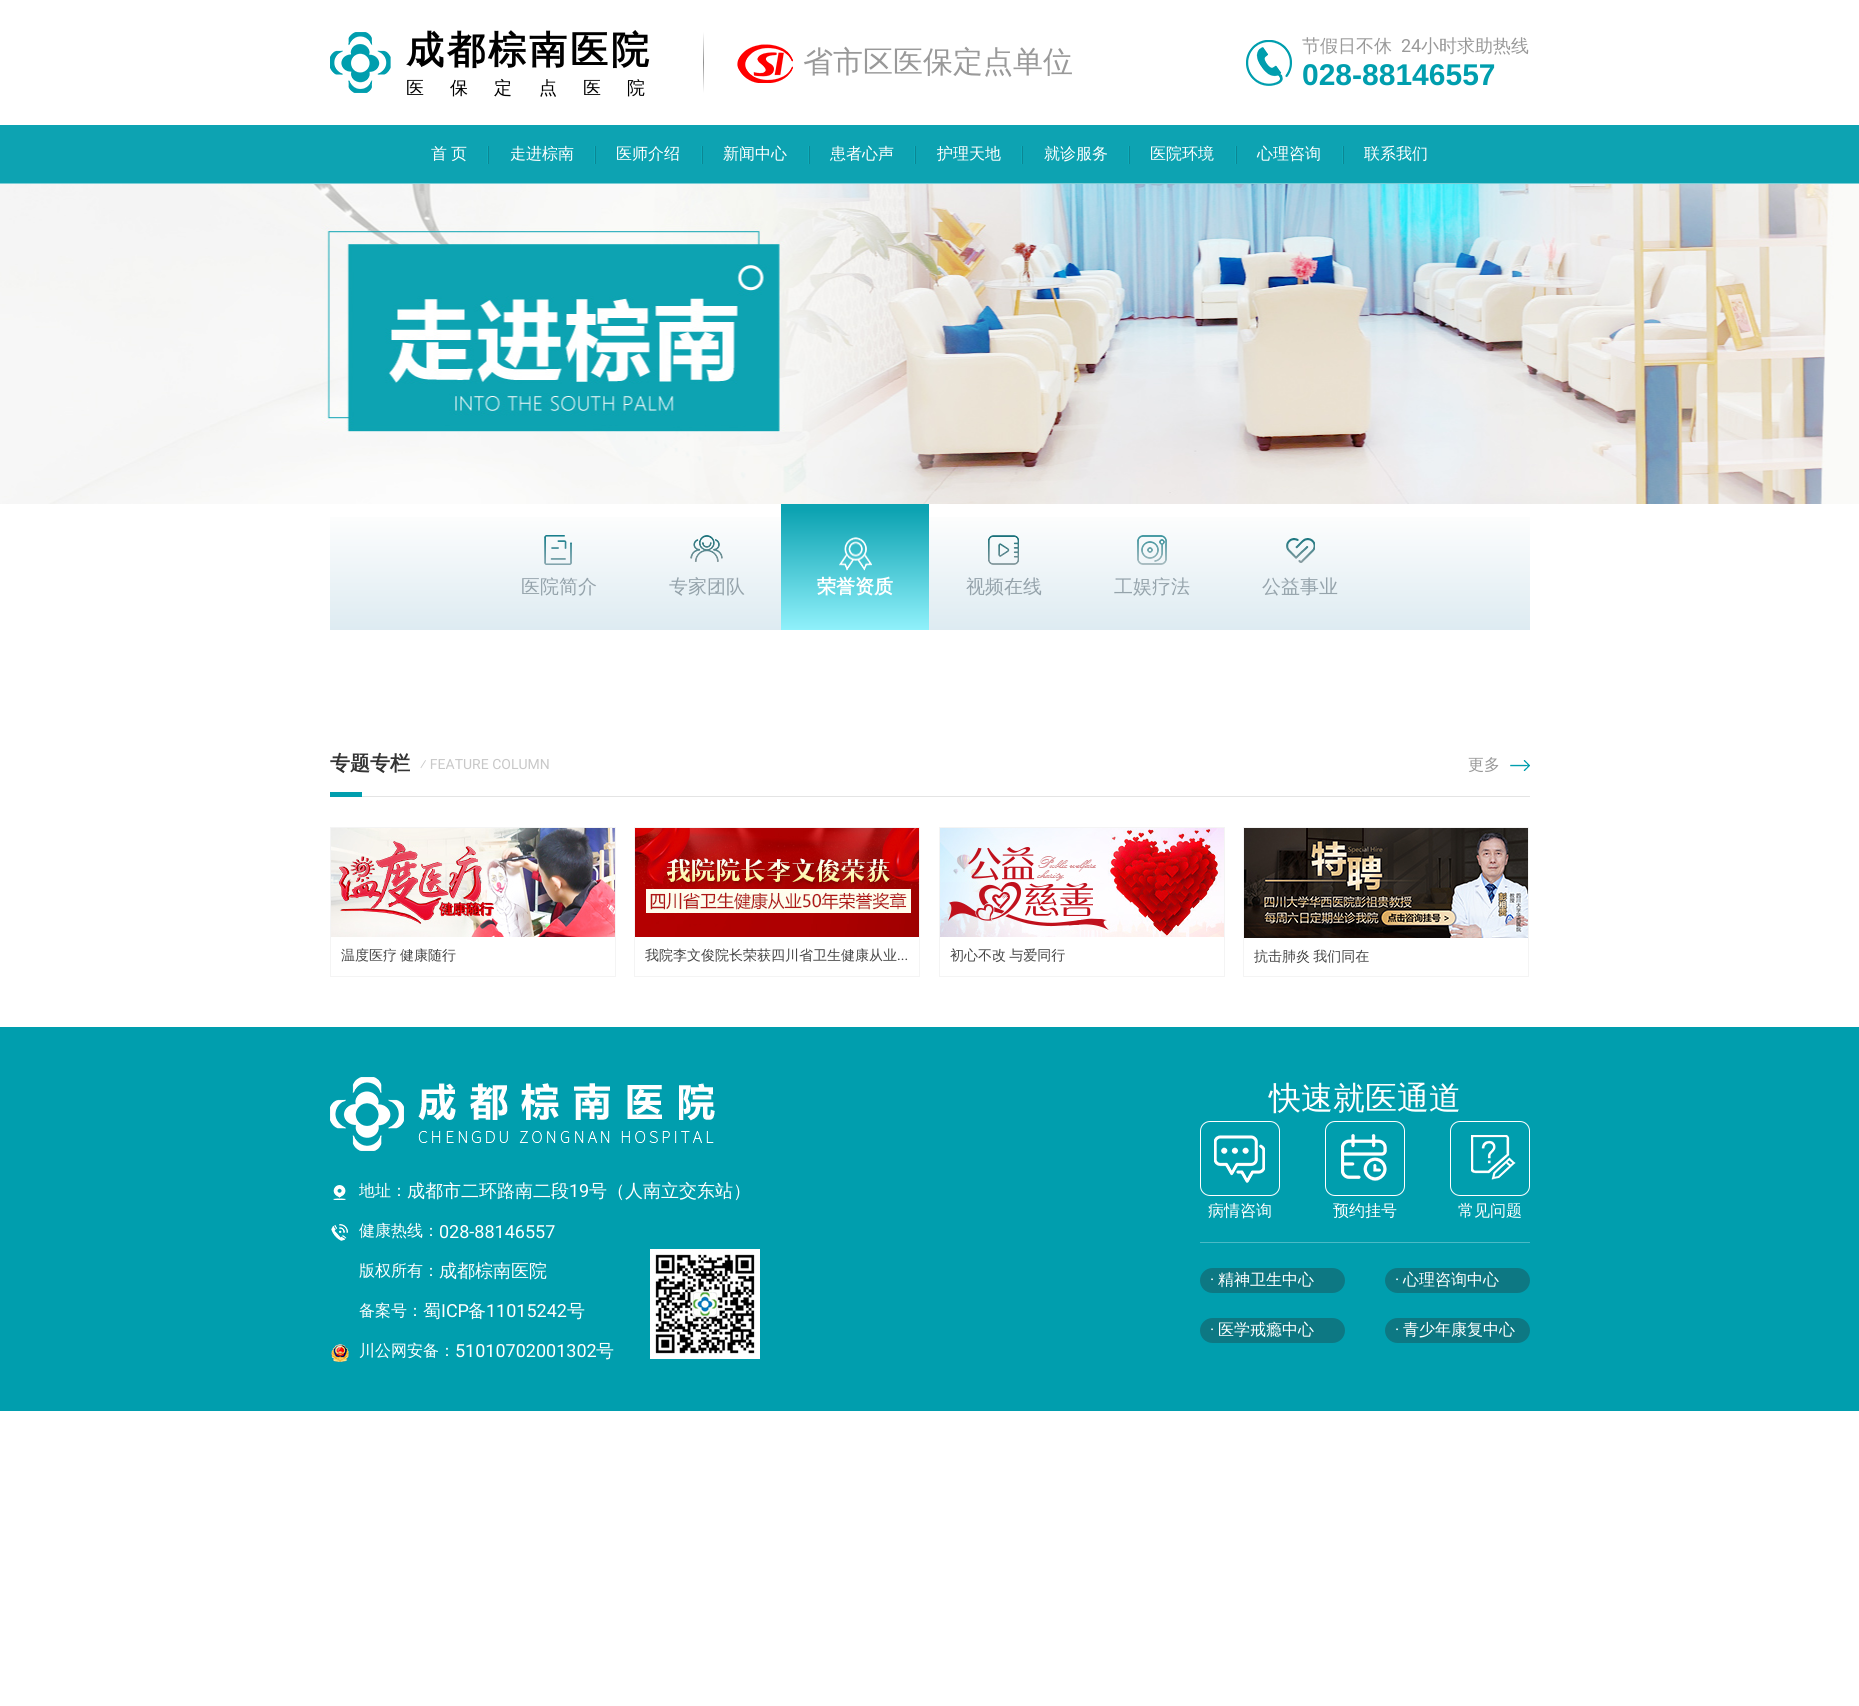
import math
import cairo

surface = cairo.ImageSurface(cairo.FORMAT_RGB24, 1859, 1706)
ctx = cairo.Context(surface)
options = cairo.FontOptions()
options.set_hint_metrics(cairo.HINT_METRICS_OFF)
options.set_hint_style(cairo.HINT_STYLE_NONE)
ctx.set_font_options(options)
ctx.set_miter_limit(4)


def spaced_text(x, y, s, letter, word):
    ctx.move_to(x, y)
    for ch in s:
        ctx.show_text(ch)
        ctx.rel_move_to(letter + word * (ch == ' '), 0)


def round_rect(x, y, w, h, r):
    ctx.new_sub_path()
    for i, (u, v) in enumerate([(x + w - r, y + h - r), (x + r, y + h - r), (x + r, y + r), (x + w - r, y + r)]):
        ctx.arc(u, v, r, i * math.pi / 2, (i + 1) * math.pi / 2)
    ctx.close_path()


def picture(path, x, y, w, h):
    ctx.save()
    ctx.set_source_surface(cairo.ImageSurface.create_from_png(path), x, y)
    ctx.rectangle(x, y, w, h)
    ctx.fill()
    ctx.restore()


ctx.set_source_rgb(1, 1, 1)
ctx.paint()
picture("img1.png", 330, 32, 61, 61)
ctx.select_font_face("WenQuanYi Zen Hei", cairo.FONT_SLANT_NORMAL, cairo.FONT_WEIGHT_BOLD)
ctx.set_font_size(38)
ctx.set_source_rgb(0, 0, 0)
spaced_text(406, 63, "成都棕南医院", 3, 0)
ctx.select_font_face("WenQuanYi Zen Hei Medium")
ctx.set_font_size(18)
ctx.move_to(406, 94)
ctx.show_text("医")
ctx.move_to(450, 94)
ctx.show_text("保")
ctx.move_to(494, 94)
ctx.show_text("定")
ctx.move_to(539, 94)
ctx.show_text("点")
ctx.move_to(583, 94)
ctx.show_text("医")
ctx.move_to(627, 94)
ctx.show_text("院")
gradient = cairo.LinearGradient(704, 32, 704, 93)
gradient.add_color_stop_rgba(0, 1, 1, 1, 1)
gradient.add_color_stop_rgba(0.5, 0.565, 0.565, 0.565, 1)
gradient.add_color_stop_rgba(1, 1, 1, 1, 1)
ctx.set_source(gradient)
ctx.rectangle(703, 32, 1, 61)
ctx.fill()
picture("img2.png", 737, 44, 56, 39)
ctx.set_font_size(30)
ctx.set_source_rgb(0.6, 0.6, 0.6)
ctx.move_to(803, 72)
ctx.show_text("省市区医保定点单位")
picture("img3.png", 1246, 40, 46, 46)
ctx.set_font_size(18)
ctx.move_to(1302, 52)
ctx.show_text("节假日不休")
ctx.select_font_face("Roboto")
ctx.move_to(1401, 52)
ctx.show_text("24")
ctx.select_font_face("WenQuanYi Zen Hei Medium")
ctx.move_to(1421, 52)
ctx.show_text("小时求助热线")
ctx.select_font_face("Liberation Sans", cairo.FONT_SLANT_NORMAL, cairo.FONT_WEIGHT_BOLD)
ctx.set_font_size(30)
ctx.set_source_rgb(0, 0.62, 0.682)
ctx.move_to(1302, 85)
ctx.show_text("028-88146557")
ctx.set_source_rgb(0.051, 0.639, 0.698)
ctx.rectangle(0, 125, 1859, 58)
ctx.fill()
ctx.set_source_rgb(0.49, 0.808, 0.839)
ctx.rectangle(0, 183, 1859, 1)
ctx.fill()
ctx.select_font_face("WenQuanYi Zen Hei Medium")
ctx.set_font_size(16)
ctx.set_source_rgb(1, 1, 1)
ctx.move_to(431, 159)
ctx.show_text("首")
ctx.move_to(451, 159)
ctx.show_text("页")
ctx.set_source_rgb(0.051, 0.678, 0.737)
ctx.rectangle(487, 146, 1, 18)
ctx.fill()
ctx.set_source_rgb(0.043, 0.529, 0.576)
ctx.rectangle(488, 146, 1, 18)
ctx.fill()
ctx.set_source_rgb(1, 1, 1)
ctx.move_to(510, 159)
ctx.show_text("走进棕南")
ctx.set_source_rgb(0.051, 0.678, 0.737)
ctx.rectangle(594, 146, 1, 18)
ctx.fill()
ctx.set_source_rgb(0.043, 0.529, 0.576)
ctx.rectangle(595, 146, 1, 18)
ctx.fill()
ctx.set_source_rgb(1, 1, 1)
ctx.move_to(616, 159)
ctx.show_text("医师介绍")
ctx.set_source_rgb(0.051, 0.678, 0.737)
ctx.rectangle(701, 146, 1, 18)
ctx.fill()
ctx.set_source_rgb(0.043, 0.529, 0.576)
ctx.rectangle(702, 146, 1, 18)
ctx.fill()
ctx.set_source_rgb(1, 1, 1)
ctx.move_to(723, 159)
ctx.show_text("新闻中心")
ctx.set_source_rgb(0.051, 0.678, 0.737)
ctx.rectangle(808, 146, 1, 18)
ctx.fill()
ctx.set_source_rgb(0.043, 0.529, 0.576)
ctx.rectangle(809, 146, 1, 18)
ctx.fill()
ctx.set_source_rgb(1, 1, 1)
ctx.move_to(830, 159)
ctx.show_text("患者心声")
ctx.set_source_rgb(0.051, 0.678, 0.737)
ctx.rectangle(914, 146, 1, 18)
ctx.fill()
ctx.set_source_rgb(0.043, 0.529, 0.576)
ctx.rectangle(915, 146, 1, 18)
ctx.fill()
ctx.set_source_rgb(1, 1, 1)
ctx.move_to(937, 159)
ctx.show_text("护理天地")
ctx.set_source_rgb(0.051, 0.678, 0.737)
ctx.rectangle(1021, 146, 1, 18)
ctx.fill()
ctx.set_source_rgb(0.043, 0.529, 0.576)
ctx.rectangle(1022, 146, 1, 18)
ctx.fill()
ctx.set_source_rgb(1, 1, 1)
ctx.move_to(1044, 159)
ctx.show_text("就诊服务")
ctx.set_source_rgb(0.051, 0.678, 0.737)
ctx.rectangle(1128, 146, 1, 18)
ctx.fill()
ctx.set_source_rgb(0.043, 0.529, 0.576)
ctx.rectangle(1129, 146, 1, 18)
ctx.fill()
ctx.set_source_rgb(1, 1, 1)
ctx.move_to(1150, 159)
ctx.show_text("医院环境")
ctx.set_source_rgb(0.051, 0.678, 0.737)
ctx.rectangle(1235, 146, 1, 18)
ctx.fill()
ctx.set_source_rgb(0.043, 0.529, 0.576)
ctx.rectangle(1236, 146, 1, 18)
ctx.fill()
ctx.set_source_rgb(1, 1, 1)
ctx.move_to(1257, 159)
ctx.show_text("心理咨询")
ctx.set_source_rgb(0.051, 0.678, 0.737)
ctx.rectangle(1342, 146, 1, 18)
ctx.fill()
ctx.set_source_rgb(0.043, 0.529, 0.576)
ctx.rectangle(1343, 146, 1, 18)
ctx.fill()
ctx.set_source_rgb(1, 1, 1)
ctx.move_to(1364, 159)
ctx.show_text("联系我们")
picture("img4.png", 0, 184, 1859, 320)
gradient = cairo.LinearGradient(930, 504, 930, 756)
gradient.add_color_stop_rgba(0.03, 0.996, 0.996, 0.996, 1)
gradient.add_color_stop_rgba(1, 0.733, 0.843, 0.894, 1)
ctx.set_source(gradient)
ctx.rectangle(330, 517, 1200, 113)
ctx.fill()
picture("img5.png", 544, 535, 28, 30)
ctx.set_font_size(19)
ctx.set_source_rgb(0.584, 0.639, 0.671)
ctx.move_to(521, 593)
ctx.show_text("医院简介")
picture("img6.png", 690, 535, 33, 27)
ctx.move_to(669, 593)
ctx.show_text("专家团队")
gradient = cairo.LinearGradient(855, 504, 855, 630)
gradient.add_color_stop_rgba(0.05, 0.051, 0.639, 0.698, 1)
gradient.add_color_stop_rgba(1, 0.565, 0.945, 0.984, 1)
ctx.set_source(gradient)
ctx.rectangle(781, 504, 148, 126)
ctx.fill()
picture("img7.png", 839, 537, 33, 34)
ctx.select_font_face("WenQuanYi Zen Hei", cairo.FONT_SLANT_NORMAL, cairo.FONT_WEIGHT_BOLD)
ctx.set_source_rgb(1, 1, 1)
ctx.move_to(817, 593)
ctx.show_text("荣誉资质")
picture("img8.png", 988, 535, 31, 30)
ctx.select_font_face("WenQuanYi Zen Hei Medium")
ctx.set_source_rgb(0.584, 0.639, 0.671)
ctx.move_to(966, 593)
ctx.show_text("视频在线")
picture("img9.png", 1137, 535, 30, 30)
ctx.move_to(1114, 593)
ctx.show_text("工娱疗法")
picture("img10.png", 1286, 538, 29, 25)
ctx.move_to(1262, 593)
ctx.show_text("公益事业")
ctx.select_font_face("WenQuanYi Zen Hei", cairo.FONT_SLANT_NORMAL, cairo.FONT_WEIGHT_BOLD)
ctx.set_font_size(20)
ctx.set_source_rgb(0.2, 0.2, 0.2)
ctx.move_to(330, 770)
ctx.show_text("专题专栏")
ctx.select_font_face("Roboto")
ctx.set_font_size(14)
ctx.set_source_rgb(0.784, 0.784, 0.784)
ctx.move_to(420, 769)
ctx.show_text("⁄ FEATURE COLUMN")
ctx.select_font_face("WenQuanYi Zen Hei Medium")
ctx.set_font_size(16)
ctx.set_source_rgb(0.6, 0.6, 0.6)
ctx.move_to(1468, 770)
ctx.show_text("更多")
picture("img11.png", 1510, 760, 20, 11)
ctx.set_source_rgb(0.894, 0.894, 0.894)
ctx.rectangle(362, 796, 1168, 1)
ctx.fill()
ctx.set_source_rgb(0, 0.62, 0.682)
ctx.rectangle(330, 792, 32, 5)
ctx.fill()
ctx.rectangle(330.5, 827.5, 285, 149)
ctx.set_source_rgb(0.957, 0.957, 0.957)
ctx.set_line_width(1)
ctx.stroke()
picture("img12.png", 331, 828, 284, 109)
ctx.set_font_size(14)
ctx.set_source_rgb(0.267, 0.267, 0.267)
ctx.move_to(341, 960)
ctx.show_text("温度医疗")
ctx.move_to(400, 960)
ctx.show_text("健康随行")
ctx.rectangle(634.5, 827.5, 285, 149)
ctx.set_source_rgb(0.957, 0.957, 0.957)
ctx.stroke()
picture("img13.png", 635, 828, 284, 109)
ctx.set_source_rgb(0.267, 0.267, 0.267)
ctx.move_to(645, 960)
ctx.show_text("我院李文俊院长荣获四川省卫生健康从业")
ctx.select_font_face("Roboto")
ctx.move_to(897, 960)
ctx.show_text("...")
ctx.rectangle(939.5, 827.5, 285, 149)
ctx.set_source_rgb(0.957, 0.957, 0.957)
ctx.stroke()
picture("img14.png", 940, 828, 284, 109)
ctx.select_font_face("WenQuanYi Zen Hei Medium")
ctx.set_source_rgb(0.267, 0.267, 0.267)
spaced_text(950, 960, "初心不改 与爱同行", 0, -1)
ctx.rectangle(1243.5, 827.5, 285, 149)
ctx.set_source_rgb(0.957, 0.957, 0.957)
ctx.stroke()
picture("img15.png", 1244, 828, 284, 110)
ctx.set_source_rgb(0.267, 0.267, 0.267)
spaced_text(1254, 961, "抗击肺炎 我们同在", 0, -1)
ctx.set_source_rgb(0, 0.62, 0.682)
ctx.rectangle(0, 1027, 1859, 384)
ctx.fill()
picture("img16.png", 330, 1077, 385, 74)
picture("img17.png", 333, 1185, 13, 15)
ctx.set_font_size(16)
ctx.set_source_rgb(1, 1, 1)
ctx.move_to(359, 1196)
ctx.show_text("地址：")
ctx.set_font_size(18)
ctx.move_to(407, 1197)
ctx.show_text("成都市二环路南二段")
ctx.select_font_face("Roboto")
ctx.move_to(569, 1197)
ctx.show_text("19")
ctx.select_font_face("WenQuanYi Zen Hei Medium")
ctx.move_to(589, 1197)
ctx.show_text("号（人南立交东站）")
picture("img18.png", 331, 1224, 17, 17)
ctx.set_font_size(16)
ctx.move_to(359, 1236)
ctx.show_text("健康热线：")
ctx.select_font_face("Roboto")
ctx.set_font_size(18)
ctx.move_to(439, 1238)
ctx.show_text("028-88146557")
ctx.select_font_face("WenQuanYi Zen Hei Medium")
ctx.set_font_size(16)
ctx.move_to(359, 1276)
ctx.show_text("版权所有：")
ctx.set_font_size(18)
ctx.move_to(439, 1277)
ctx.show_text("成都棕南医院")
picture("img19.png", 650, 1249, 110, 110)
ctx.set_font_size(16)
ctx.move_to(359, 1316)
ctx.show_text("备案号：")
ctx.set_font_size(18)
ctx.move_to(423, 1317)
ctx.show_text("蜀")
ctx.select_font_face("Roboto")
ctx.move_to(441, 1317)
ctx.show_text("ICP")
ctx.select_font_face("WenQuanYi Zen Hei Medium")
ctx.move_to(468, 1317)
ctx.show_text("备")
ctx.select_font_face("Roboto")
ctx.move_to(486, 1317)
ctx.show_text("11015242")
ctx.select_font_face("WenQuanYi Zen Hei Medium")
ctx.move_to(567, 1317)
ctx.show_text("号")
picture("img20.png", 331, 1344, 18, 18)
ctx.set_font_size(16)
ctx.move_to(359, 1356)
ctx.show_text("川公网安备：")
ctx.select_font_face("Roboto")
ctx.set_font_size(18)
ctx.move_to(455, 1357)
ctx.show_text("51010702001302")
ctx.select_font_face("WenQuanYi Zen Hei Medium")
ctx.move_to(596, 1357)
ctx.show_text("号")
ctx.set_font_size(32)
ctx.move_to(1269, 1109)
ctx.show_text("快速就医通道")
ctx.set_source_rgb(0.29, 0.729, 0.776)
ctx.rectangle(1200, 1242, 330, 1)
ctx.fill()
round_rect(1200.5, 1121.5, 79, 74, 9.5)
ctx.set_source_rgb(1, 1, 1)
ctx.stroke()
picture("img21.png", 1214, 1135, 51, 48)
ctx.set_font_size(16)
ctx.move_to(1208, 1216)
ctx.show_text("病情咨询")
round_rect(1325.5, 1121.5, 79, 74, 9.5)
ctx.stroke()
picture("img22.png", 1341, 1134, 46, 47)
ctx.move_to(1333, 1216)
ctx.show_text("预约挂号")
round_rect(1450.5, 1121.5, 79, 74, 9.5)
ctx.stroke()
picture("img23.png", 1471, 1135, 45, 45)
ctx.move_to(1458, 1216)
ctx.show_text("常见问题")
ctx.set_source_rgb(0.051, 0.471, 0.514)
round_rect(1200, 1268, 145, 25, 12.5)
ctx.fill()
ctx.select_font_face("Roboto")
ctx.set_source_rgb(1, 1, 1)
ctx.move_to(1210, 1285)
ctx.show_text("·")
ctx.select_font_face("WenQuanYi Zen Hei Medium")
ctx.move_to(1218, 1285)
ctx.show_text("精神卫生中心")
ctx.set_source_rgb(0.051, 0.471, 0.514)
round_rect(1385, 1268, 145, 25, 12.5)
ctx.fill()
ctx.select_font_face("Roboto")
ctx.set_source_rgb(1, 1, 1)
ctx.move_to(1395, 1285)
ctx.show_text("·")
ctx.select_font_face("WenQuanYi Zen Hei Medium")
ctx.move_to(1403, 1285)
ctx.show_text("心理咨询中心")
ctx.set_source_rgb(0.051, 0.471, 0.514)
round_rect(1200, 1318, 145, 25, 12.5)
ctx.fill()
ctx.select_font_face("Roboto")
ctx.set_source_rgb(1, 1, 1)
ctx.move_to(1210, 1335)
ctx.show_text("·")
ctx.select_font_face("WenQuanYi Zen Hei Medium")
ctx.move_to(1218, 1335)
ctx.show_text("医学戒瘾中心")
ctx.set_source_rgb(0.051, 0.471, 0.514)
round_rect(1385, 1318, 145, 25, 12.5)
ctx.fill()
ctx.select_font_face("Roboto")
ctx.set_source_rgb(1, 1, 1)
ctx.move_to(1395, 1335)
ctx.show_text("·")
ctx.select_font_face("WenQuanYi Zen Hei Medium")
ctx.move_to(1403, 1335)
ctx.show_text("青少年康复中心")
surface.write_to_png("page.png")
